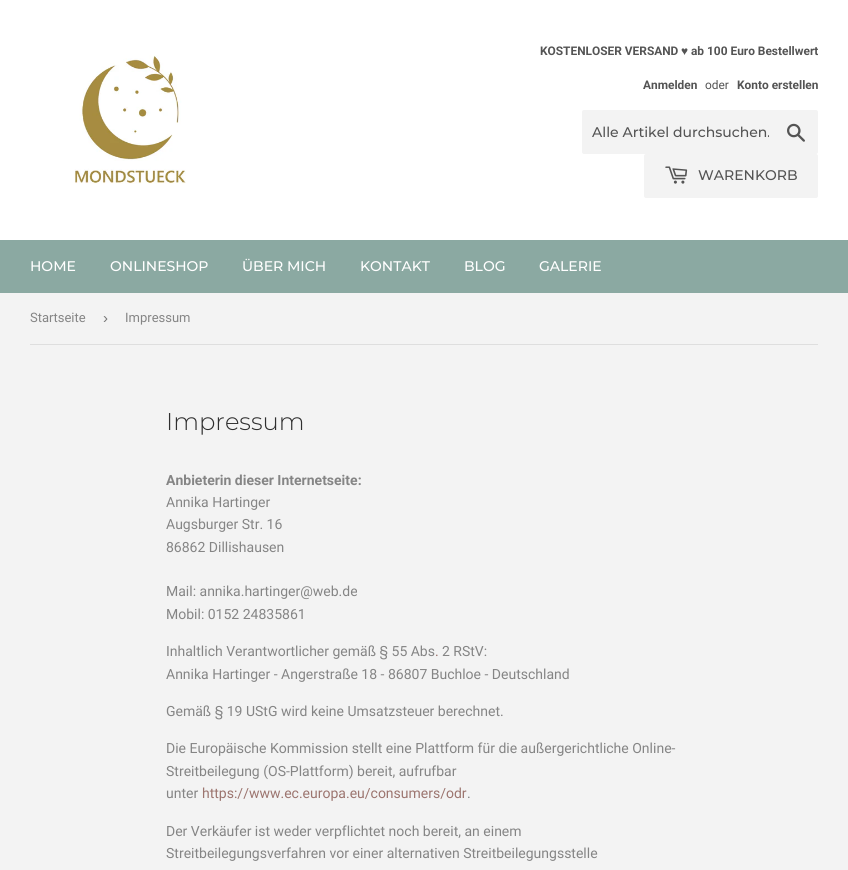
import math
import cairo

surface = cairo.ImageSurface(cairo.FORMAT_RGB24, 848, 870)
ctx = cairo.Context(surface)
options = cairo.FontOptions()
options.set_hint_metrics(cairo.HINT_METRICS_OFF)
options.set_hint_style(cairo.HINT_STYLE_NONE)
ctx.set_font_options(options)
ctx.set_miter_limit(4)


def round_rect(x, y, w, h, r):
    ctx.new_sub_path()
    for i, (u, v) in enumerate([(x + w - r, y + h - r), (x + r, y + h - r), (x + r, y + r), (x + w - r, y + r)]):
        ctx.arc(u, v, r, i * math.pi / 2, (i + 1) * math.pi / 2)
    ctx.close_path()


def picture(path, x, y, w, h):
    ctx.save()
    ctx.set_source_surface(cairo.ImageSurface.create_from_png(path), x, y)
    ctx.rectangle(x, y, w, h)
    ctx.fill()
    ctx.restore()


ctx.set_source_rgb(0.953, 0.953, 0.953)
ctx.paint()
ctx.set_source_rgb(1, 1, 1)
ctx.rectangle(0, 0, 848, 240)
ctx.fill()
picture("img1.png", 74, 55, 112, 129)
ctx.select_font_face("Roboto", cairo.FONT_SLANT_NORMAL, cairo.FONT_WEIGHT_BOLD)
ctx.set_font_size(11.9)
ctx.set_source_rgb(0.329, 0.329, 0.329)
ctx.move_to(540, 55)
ctx.show_text("KOSTENLOSER VERSAND")
ctx.select_font_face("Liberation Sans", cairo.FONT_SLANT_NORMAL, cairo.FONT_WEIGHT_BOLD)
ctx.move_to(681, 55)
ctx.show_text("♥")
ctx.select_font_face("Roboto", cairo.FONT_SLANT_NORMAL, cairo.FONT_WEIGHT_BOLD)
ctx.move_to(691, 55)
ctx.show_text("ab 100 Euro Bestellwert")
ctx.move_to(643, 89)
ctx.show_text("Anmelden")
ctx.select_font_face("Roboto")
ctx.move_to(705, 89)
ctx.show_text("oder")
ctx.select_font_face("Roboto", cairo.FONT_SLANT_NORMAL, cairo.FONT_WEIGHT_BOLD)
ctx.move_to(737, 89)
ctx.show_text("Konto erstellen")
ctx.set_source_rgb(0.953, 0.953, 0.953)
round_rect(582, 110, 236, 44, 2)
ctx.fill()
ctx.save()
ctx.rectangle(592, 123, 177, 18)
ctx.clip()
ctx.select_font_face("Montserrat Medium")
ctx.set_font_size(14)
ctx.set_source_rgb(0.329, 0.329, 0.329)
ctx.move_to(592, 137)
ctx.show_text("Alle Artikel durchsuchen.")
ctx.restore()
picture("img2.png", 787, 123, 18, 19)
round_rect(644, 154, 174, 44, 2)
ctx.fill()
picture("img3.png", 665, 166, 23, 18)
ctx.select_font_face("Montserrat Medium")
ctx.set_font_size(14)
ctx.set_source_rgb(0.329, 0.329, 0.329)
ctx.move_to(698, 180)
ctx.show_text("WARENKORB")
ctx.set_source_rgb(0.545, 0.663, 0.635)
ctx.rectangle(0, 240, 848, 53)
ctx.fill()
ctx.set_source_rgb(1, 1, 1)
ctx.move_to(30, 271)
ctx.show_text("HOME")
ctx.move_to(110, 271)
ctx.show_text("ONLINESHOP")
ctx.move_to(242, 271)
ctx.show_text("ÜBER MICH")
ctx.move_to(360, 271)
ctx.show_text("KONTAKT")
ctx.move_to(464, 271)
ctx.show_text("BLOG")
ctx.move_to(539, 271)
ctx.show_text("GALERIE")
ctx.set_source_rgb(0.871, 0.871, 0.871)
ctx.rectangle(30, 344, 788, 1)
ctx.fill()
ctx.select_font_face("Roboto")
ctx.set_font_size(13)
ctx.set_source_rgb(0.522, 0.522, 0.522)
ctx.move_to(30, 322)
ctx.show_text("Startseite")
ctx.select_font_face("Liberation Sans")
ctx.set_font_size(15)
ctx.set_source_rgb(0.463, 0.463, 0.463)
ctx.move_to(103, 323)
ctx.show_text("›")
ctx.select_font_face("Roboto")
ctx.set_font_size(13)
ctx.set_source_rgb(0.522, 0.522, 0.522)
ctx.move_to(125, 322)
ctx.show_text("Impressum")
ctx.select_font_face("Montserrat Light")
ctx.set_font_size(24.25)
ctx.set_source_rgb(0.184, 0.184, 0.184)
ctx.move_to(166, 430)
ctx.show_text("Impressum")
ctx.select_font_face("Roboto", cairo.FONT_SLANT_NORMAL, cairo.FONT_WEIGHT_BOLD)
ctx.set_font_size(14)
ctx.set_source_rgb(0.522, 0.522, 0.522)
ctx.move_to(166, 485)
ctx.show_text("Anbieterin dieser Internetseite:")
ctx.select_font_face("Roboto")
ctx.move_to(166, 507)
ctx.show_text("Annika Hartinger")
ctx.move_to(166, 529)
ctx.show_text("Augsburger Str. 16")
ctx.move_to(166, 552)
ctx.show_text("86862 Dillishausen")
ctx.move_to(166, 596)
ctx.show_text("Mail: annika.hartinger@web.de")
ctx.move_to(166, 619)
ctx.show_text("Mobil: 0152 24835861")
ctx.move_to(166, 656)
ctx.show_text("Inhaltlich Verantwortlicher gemäß § 55 Abs")
ctx.set_source_rgb(0.612, 0.459, 0.435)
ctx.move_to(435, 656)
ctx.show_text(".")
ctx.set_source_rgb(0.522, 0.522, 0.522)
ctx.move_to(442, 656)
ctx.show_text("2 RStV:")
ctx.move_to(166, 679)
ctx.show_text("Annika Hartinger - Angerstraße 18 - 86807 Buchloe - Deutschland")
ctx.move_to(166, 716)
ctx.show_text("Gemäß § 19 UStG wird keine Umsatzsteuer berechnet.")
ctx.move_to(166, 753)
ctx.show_text("Die Europäische Kommission stellt eine Plattform für die außergerichtliche Online-")
ctx.move_to(166, 776)
ctx.show_text("Streitbeilegung (OS-Plattform) bereit, aufrufbar")
ctx.move_to(166, 798)
ctx.show_text("unter")
ctx.set_source_rgb(0.612, 0.459, 0.435)
ctx.move_to(202, 798)
ctx.show_text("https://www.ec.europa.eu/consumers/odr")
ctx.set_source_rgb(0.522, 0.522, 0.522)
ctx.move_to(467, 798)
ctx.show_text(".")
ctx.move_to(166, 836)
ctx.show_text("Der Verkäufer ist weder verpflichtet noch bereit, an einem")
ctx.move_to(166, 858)
ctx.show_text("Streitbeilegungsverfahren vor einer alternativen Streitbeilegungsstelle")
surface.write_to_png("page.png")
